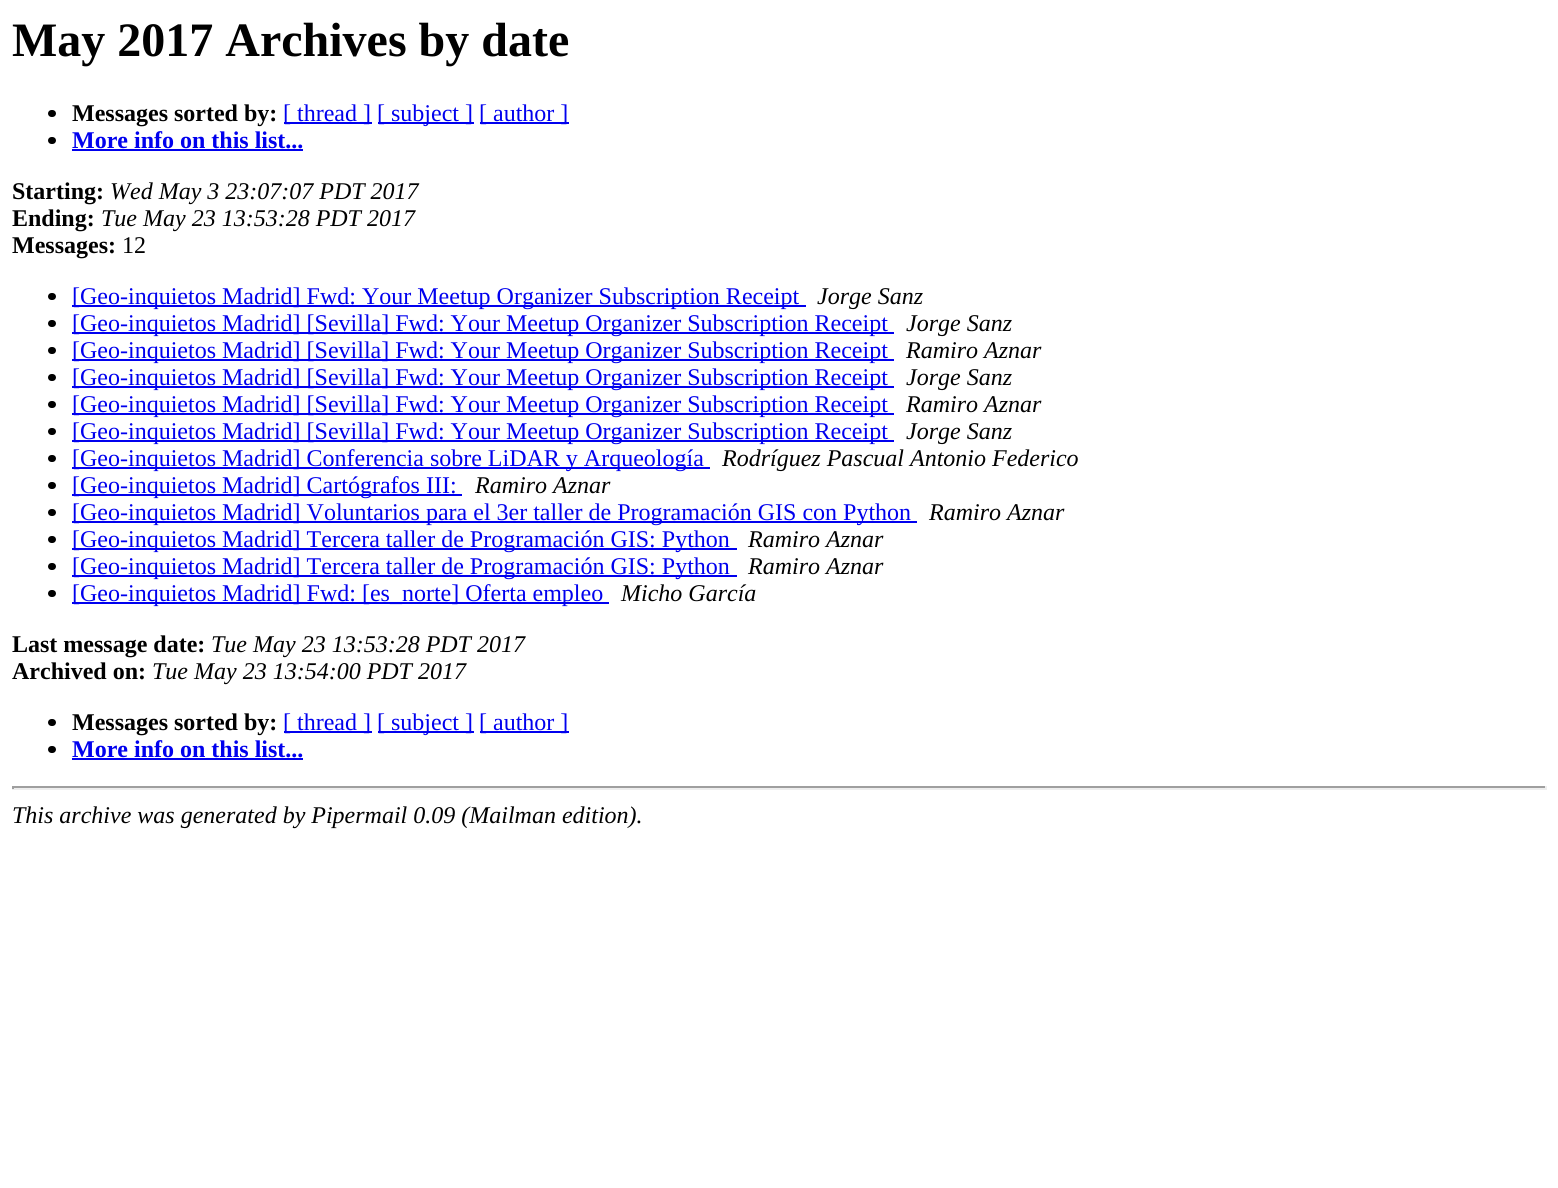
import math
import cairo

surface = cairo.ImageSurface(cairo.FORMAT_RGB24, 1558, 1188)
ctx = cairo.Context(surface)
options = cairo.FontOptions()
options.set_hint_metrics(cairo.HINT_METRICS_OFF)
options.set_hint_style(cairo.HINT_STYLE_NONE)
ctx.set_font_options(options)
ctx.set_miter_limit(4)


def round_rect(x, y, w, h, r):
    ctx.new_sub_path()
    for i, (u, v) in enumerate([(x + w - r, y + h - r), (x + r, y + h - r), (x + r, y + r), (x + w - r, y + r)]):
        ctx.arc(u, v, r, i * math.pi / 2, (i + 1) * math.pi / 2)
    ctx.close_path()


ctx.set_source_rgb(1, 1, 1)
ctx.paint()
ctx.select_font_face("Liberation Serif", cairo.FONT_SLANT_NORMAL, cairo.FONT_WEIGHT_BOLD)
ctx.set_font_size(48)
ctx.set_source_rgb(0, 0, 0)
ctx.move_to(12, 56)
ctx.show_text("May 2017 Archives by date")
round_rect(48, 110, 8, 7, 3.5)
ctx.fill()
ctx.set_font_size(24)
ctx.move_to(72, 121)
ctx.show_text("Messages sorted by:")
ctx.set_source_rgb(0, 0, 0.933)
ctx.rectangle(284, 122, 88, 2)
ctx.fill()
ctx.select_font_face("Liberation Serif")
ctx.move_to(283, 121)
ctx.show_text("[ thread ]")
ctx.rectangle(378, 122, 96, 2)
ctx.fill()
ctx.move_to(377, 121)
ctx.show_text("[ subject ]")
ctx.rectangle(480, 122, 89, 2)
ctx.fill()
ctx.move_to(479, 121)
ctx.show_text("[ author ]")
ctx.set_source_rgb(0, 0, 0)
round_rect(48, 137, 8, 7, 3.5)
ctx.fill()
ctx.select_font_face("Liberation Serif", cairo.FONT_SLANT_NORMAL, cairo.FONT_WEIGHT_BOLD)
ctx.set_source_rgb(0, 0, 0.933)
ctx.move_to(72, 148)
ctx.show_text("More info on this list...")
ctx.rectangle(72, 149, 231, 2)
ctx.fill()
ctx.set_source_rgb(0, 0, 0)
ctx.move_to(12, 199)
ctx.show_text("Starting:")
ctx.select_font_face("Liberation Serif", cairo.FONT_SLANT_ITALIC)
ctx.move_to(110, 199)
ctx.show_text("Wed May 3 23:07:07 PDT 2017")
ctx.select_font_face("Liberation Serif", cairo.FONT_SLANT_NORMAL, cairo.FONT_WEIGHT_BOLD)
ctx.move_to(12, 226)
ctx.show_text("Ending:")
ctx.select_font_face("Liberation Serif", cairo.FONT_SLANT_ITALIC)
ctx.move_to(101, 226)
ctx.show_text("Tue May 23 13:53:28 PDT 2017")
ctx.select_font_face("Liberation Serif", cairo.FONT_SLANT_NORMAL, cairo.FONT_WEIGHT_BOLD)
ctx.move_to(12, 253)
ctx.show_text("Messages:")
ctx.select_font_face("Liberation Serif")
ctx.move_to(122, 253)
ctx.show_text("12")
round_rect(48, 293, 8, 7, 3.5)
ctx.fill()
ctx.set_source_rgb(0, 0, 0.933)
ctx.rectangle(72, 305, 734, 2)
ctx.fill()
ctx.move_to(72, 304)
ctx.show_text("[Geo-inquietos Madrid] Fwd: Your Meetup Organizer Subscription Receipt")
ctx.select_font_face("Liberation Serif", cairo.FONT_SLANT_ITALIC)
ctx.set_source_rgb(0, 0, 0)
ctx.move_to(817, 304)
ctx.show_text("Jorge Sanz")
round_rect(48, 320, 8, 7, 3.5)
ctx.fill()
ctx.set_source_rgb(0, 0, 0.933)
ctx.rectangle(72, 332, 822, 2)
ctx.fill()
ctx.select_font_face("Liberation Serif")
ctx.move_to(72, 331)
ctx.show_text("[Geo-inquietos Madrid] [Sevilla] Fwd: Your Meetup Organizer Subscription Receipt")
ctx.select_font_face("Liberation Serif", cairo.FONT_SLANT_ITALIC)
ctx.set_source_rgb(0, 0, 0)
ctx.move_to(906, 331)
ctx.show_text("Jorge Sanz")
round_rect(48, 347, 8, 7, 3.5)
ctx.fill()
ctx.set_source_rgb(0, 0, 0.933)
ctx.rectangle(72, 359, 822, 2)
ctx.fill()
ctx.select_font_face("Liberation Serif")
ctx.move_to(72, 358)
ctx.show_text("[Geo-inquietos Madrid] [Sevilla] Fwd: Your Meetup Organizer Subscription Receipt")
ctx.select_font_face("Liberation Serif", cairo.FONT_SLANT_ITALIC)
ctx.set_source_rgb(0, 0, 0)
ctx.move_to(906, 358)
ctx.show_text("Ramiro Aznar")
round_rect(48, 374, 8, 7, 3.5)
ctx.fill()
ctx.set_source_rgb(0, 0, 0.933)
ctx.rectangle(72, 386, 822, 2)
ctx.fill()
ctx.select_font_face("Liberation Serif")
ctx.move_to(72, 385)
ctx.show_text("[Geo-inquietos Madrid] [Sevilla] Fwd: Your Meetup Organizer Subscription Receipt")
ctx.select_font_face("Liberation Serif", cairo.FONT_SLANT_ITALIC)
ctx.set_source_rgb(0, 0, 0)
ctx.move_to(906, 385)
ctx.show_text("Jorge Sanz")
round_rect(48, 401, 8, 7, 3.5)
ctx.fill()
ctx.set_source_rgb(0, 0, 0.933)
ctx.rectangle(72, 413, 822, 2)
ctx.fill()
ctx.select_font_face("Liberation Serif")
ctx.move_to(72, 412)
ctx.show_text("[Geo-inquietos Madrid] [Sevilla] Fwd: Your Meetup Organizer Subscription Receipt")
ctx.select_font_face("Liberation Serif", cairo.FONT_SLANT_ITALIC)
ctx.set_source_rgb(0, 0, 0)
ctx.move_to(906, 412)
ctx.show_text("Ramiro Aznar")
round_rect(48, 428, 8, 7, 3.5)
ctx.fill()
ctx.set_source_rgb(0, 0, 0.933)
ctx.rectangle(72, 440, 822, 2)
ctx.fill()
ctx.select_font_face("Liberation Serif")
ctx.move_to(72, 439)
ctx.show_text("[Geo-inquietos Madrid] [Sevilla] Fwd: Your Meetup Organizer Subscription Receipt")
ctx.select_font_face("Liberation Serif", cairo.FONT_SLANT_ITALIC)
ctx.set_source_rgb(0, 0, 0)
ctx.move_to(906, 439)
ctx.show_text("Jorge Sanz")
round_rect(48, 455, 8, 7, 3.5)
ctx.fill()
ctx.set_source_rgb(0, 0, 0.933)
ctx.rectangle(72, 467, 638, 2)
ctx.fill()
ctx.select_font_face("Liberation Serif")
ctx.move_to(72, 466)
ctx.show_text("[Geo-inquietos Madrid] Conferencia sobre LiDAR y Arqueología")
ctx.select_font_face("Liberation Serif", cairo.FONT_SLANT_ITALIC)
ctx.set_source_rgb(0, 0, 0)
ctx.move_to(722, 466)
ctx.show_text("Rodríguez Pascual Antonio Federico")
round_rect(48, 482, 8, 7, 3.5)
ctx.fill()
ctx.set_source_rgb(0, 0, 0.933)
ctx.rectangle(72, 494, 390, 2)
ctx.fill()
ctx.select_font_face("Liberation Serif")
ctx.move_to(72, 493)
ctx.show_text("[Geo-inquietos Madrid] Cartógrafos III:")
ctx.select_font_face("Liberation Serif", cairo.FONT_SLANT_ITALIC)
ctx.set_source_rgb(0, 0, 0)
ctx.move_to(475, 493)
ctx.show_text("Ramiro Aznar")
round_rect(48, 509, 8, 7, 3.5)
ctx.fill()
ctx.set_source_rgb(0, 0, 0.933)
ctx.rectangle(72, 521, 845, 2)
ctx.fill()
ctx.select_font_face("Liberation Serif")
ctx.move_to(72, 520)
ctx.show_text("[Geo-inquietos Madrid] Voluntarios para el 3er taller de Programación GIS con Python")
ctx.select_font_face("Liberation Serif", cairo.FONT_SLANT_ITALIC)
ctx.set_source_rgb(0, 0, 0)
ctx.move_to(929, 520)
ctx.show_text("Ramiro Aznar")
round_rect(48, 536, 8, 7, 3.5)
ctx.fill()
ctx.set_source_rgb(0, 0, 0.933)
ctx.rectangle(72, 548, 665, 2)
ctx.fill()
ctx.select_font_face("Liberation Serif")
ctx.move_to(72, 547)
ctx.show_text("[Geo-inquietos Madrid] Tercera taller de Programación GIS: Python")
ctx.select_font_face("Liberation Serif", cairo.FONT_SLANT_ITALIC)
ctx.set_source_rgb(0, 0, 0)
ctx.move_to(748, 547)
ctx.show_text("Ramiro Aznar")
round_rect(48, 563, 8, 7, 3.5)
ctx.fill()
ctx.set_source_rgb(0, 0, 0.933)
ctx.rectangle(72, 575, 665, 2)
ctx.fill()
ctx.select_font_face("Liberation Serif")
ctx.move_to(72, 574)
ctx.show_text("[Geo-inquietos Madrid] Tercera taller de Programación GIS: Python")
ctx.select_font_face("Liberation Serif", cairo.FONT_SLANT_ITALIC)
ctx.set_source_rgb(0, 0, 0)
ctx.move_to(748, 574)
ctx.show_text("Ramiro Aznar")
round_rect(48, 590, 8, 7, 3.5)
ctx.fill()
ctx.set_source_rgb(0, 0, 0.933)
ctx.rectangle(72, 602, 537, 2)
ctx.fill()
ctx.select_font_face("Liberation Serif")
ctx.move_to(72, 601)
ctx.show_text("[Geo-inquietos Madrid] Fwd: [es_norte] Oferta empleo")
ctx.select_font_face("Liberation Serif", cairo.FONT_SLANT_ITALIC)
ctx.set_source_rgb(0, 0, 0)
ctx.move_to(621, 601)
ctx.show_text("Micho García")
ctx.select_font_face("Liberation Serif", cairo.FONT_SLANT_NORMAL, cairo.FONT_WEIGHT_BOLD)
ctx.move_to(12, 652)
ctx.show_text("Last message date:")
ctx.select_font_face("Liberation Serif", cairo.FONT_SLANT_ITALIC)
ctx.move_to(211, 652)
ctx.show_text("Tue May 23 13:53:28 PDT 2017")
ctx.select_font_face("Liberation Serif", cairo.FONT_SLANT_NORMAL, cairo.FONT_WEIGHT_BOLD)
ctx.move_to(12, 679)
ctx.show_text("Archived on:")
ctx.select_font_face("Liberation Serif", cairo.FONT_SLANT_ITALIC)
ctx.move_to(152, 679)
ctx.show_text("Tue May 23 13:54:00 PDT 2017")
round_rect(48, 719, 8, 7, 3.5)
ctx.fill()
ctx.select_font_face("Liberation Serif", cairo.FONT_SLANT_NORMAL, cairo.FONT_WEIGHT_BOLD)
ctx.move_to(72, 730)
ctx.show_text("Messages sorted by:")
ctx.set_source_rgb(0, 0, 0.933)
ctx.rectangle(284, 731, 88, 2)
ctx.fill()
ctx.select_font_face("Liberation Serif")
ctx.move_to(283, 730)
ctx.show_text("[ thread ]")
ctx.rectangle(378, 731, 96, 2)
ctx.fill()
ctx.move_to(377, 730)
ctx.show_text("[ subject ]")
ctx.rectangle(480, 731, 89, 2)
ctx.fill()
ctx.move_to(479, 730)
ctx.show_text("[ author ]")
ctx.set_source_rgb(0, 0, 0)
round_rect(48, 746, 8, 7, 3.5)
ctx.fill()
ctx.select_font_face("Liberation Serif", cairo.FONT_SLANT_NORMAL, cairo.FONT_WEIGHT_BOLD)
ctx.set_source_rgb(0, 0, 0.933)
ctx.move_to(72, 757)
ctx.show_text("More info on this list...")
ctx.rectangle(72, 758, 231, 2)
ctx.fill()
ctx.set_source_rgb(0.624, 0.624, 0.624)
ctx.rectangle(12, 786, 1535, 2)
ctx.fill()
ctx.set_source_rgb(0.933, 0.933, 0.933)
ctx.rectangle(1545, 786, 2, 3)
ctx.fill()
ctx.rectangle(12, 788, 1535, 2)
ctx.fill()
ctx.set_source_rgb(0.624, 0.624, 0.624)
ctx.rectangle(12, 786, 2, 3)
ctx.fill()
ctx.select_font_face("Liberation Serif", cairo.FONT_SLANT_ITALIC)
ctx.set_source_rgb(0, 0, 0)
ctx.move_to(12, 823)
ctx.show_text("This archive was generated by Pipermail 0.09 (Mailman edition).")
surface.write_to_png("page.png")
